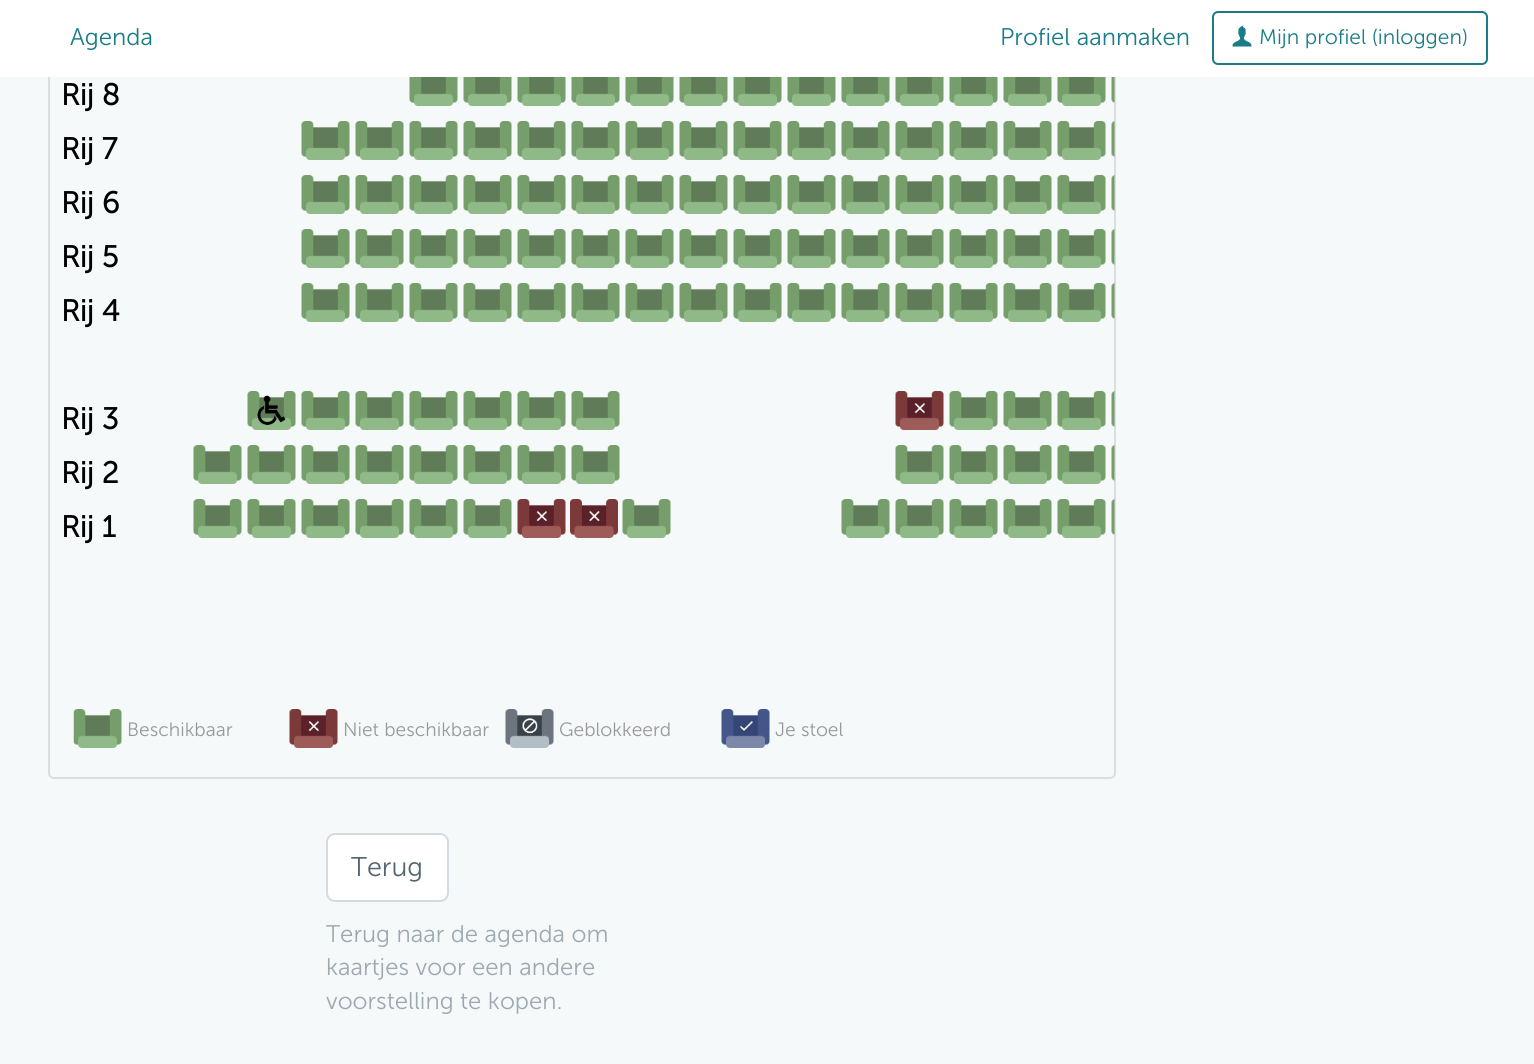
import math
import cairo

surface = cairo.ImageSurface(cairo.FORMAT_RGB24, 1534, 1064)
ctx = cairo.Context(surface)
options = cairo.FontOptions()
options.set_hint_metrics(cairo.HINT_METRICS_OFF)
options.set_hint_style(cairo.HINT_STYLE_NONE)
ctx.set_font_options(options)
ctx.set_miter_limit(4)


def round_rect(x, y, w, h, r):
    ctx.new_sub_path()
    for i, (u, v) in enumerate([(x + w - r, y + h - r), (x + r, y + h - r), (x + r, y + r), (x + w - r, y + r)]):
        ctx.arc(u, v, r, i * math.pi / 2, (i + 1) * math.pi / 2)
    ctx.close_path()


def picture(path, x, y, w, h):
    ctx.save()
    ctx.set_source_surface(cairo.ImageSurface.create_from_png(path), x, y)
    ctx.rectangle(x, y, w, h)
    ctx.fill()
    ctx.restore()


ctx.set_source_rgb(0.961, 0.973, 0.98)
ctx.paint()
round_rect(49, -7, 1066, 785, 5)
ctx.set_source_rgb(0.867, 0.867, 0.867)
ctx.stroke()
ctx.set_source_rgb(1, 1, 1)
ctx.rectangle(0, 0, 1534, 77)
ctx.fill()
ctx.select_font_face("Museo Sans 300 Light")
ctx.set_font_size(24)
ctx.set_source_rgb(0.098, 0.486, 0.525)
ctx.move_to(70, 45)
ctx.show_text("Agenda")
ctx.move_to(1000, 45)
ctx.show_text("Profiel aanmaken")
round_rect(1213, 12, 274, 52, 5)
ctx.stroke()
picture("img1.png", 1232, 25, 20, 22)
ctx.set_font_size(21)
ctx.move_to(1259, 44)
ctx.show_text("Mijn profiel (inloggen)")
ctx.select_font_face("Museo Sans 300", cairo.FONT_SLANT_NORMAL, cairo.FONT_WEIGHT_BOLD)
ctx.set_font_size(30)
ctx.set_source_rgb(0, 0, 0)
ctx.move_to(61, 105)
ctx.show_text("Rij 8")
picture("img2.png", 409, 77, 49, 29)
picture("img3.png", 463, 77, 49, 29)
picture("img4.png", 517, 77, 49, 29)
picture("img2.png", 571, 77, 49, 29)
picture("img2.png", 625, 77, 49, 29)
picture("img2.png", 679, 77, 49, 29)
picture("img5.png", 733, 77, 49, 29)
picture("img3.png", 787, 77, 49, 29)
picture("img3.png", 841, 77, 49, 29)
picture("img3.png", 895, 77, 49, 29)
picture("img3.png", 949, 77, 49, 29)
picture("img3.png", 1003, 77, 49, 29)
picture("img5.png", 1057, 77, 49, 29)
picture("img6.png", 1111, 77, 4, 26)
picture("img7.png", 301, 121, 49, 39)
picture("img8.png", 355, 121, 49, 39)
picture("img8.png", 409, 121, 49, 39)
picture("img7.png", 463, 121, 49, 39)
picture("img9.png", 517, 121, 49, 39)
picture("img8.png", 571, 121, 49, 39)
picture("img8.png", 625, 121, 49, 39)
picture("img8.png", 679, 121, 49, 39)
picture("img10.png", 733, 121, 49, 39)
picture("img7.png", 787, 121, 49, 39)
picture("img7.png", 841, 121, 49, 39)
picture("img7.png", 895, 121, 49, 39)
picture("img7.png", 949, 121, 49, 39)
picture("img7.png", 1003, 121, 49, 39)
picture("img10.png", 1057, 121, 49, 39)
picture("img11.png", 1111, 121, 4, 36)
picture("img7.png", 301, 175, 49, 39)
picture("img8.png", 355, 175, 49, 39)
picture("img8.png", 409, 175, 49, 39)
picture("img7.png", 463, 175, 49, 39)
picture("img9.png", 517, 175, 49, 39)
picture("img8.png", 571, 175, 49, 39)
picture("img8.png", 625, 175, 49, 39)
picture("img8.png", 679, 175, 49, 39)
picture("img10.png", 733, 175, 49, 39)
picture("img7.png", 787, 175, 49, 39)
picture("img7.png", 841, 175, 49, 39)
picture("img7.png", 895, 175, 49, 39)
picture("img7.png", 949, 175, 49, 39)
picture("img7.png", 1003, 175, 49, 39)
picture("img10.png", 1057, 175, 49, 39)
picture("img11.png", 1111, 175, 4, 36)
picture("img7.png", 301, 229, 49, 39)
picture("img8.png", 355, 229, 49, 39)
picture("img8.png", 409, 229, 49, 39)
picture("img7.png", 463, 229, 49, 39)
picture("img9.png", 517, 229, 49, 39)
picture("img8.png", 571, 229, 49, 39)
picture("img8.png", 625, 229, 49, 39)
picture("img8.png", 679, 229, 49, 39)
picture("img10.png", 733, 229, 49, 39)
picture("img7.png", 787, 229, 49, 39)
picture("img7.png", 841, 229, 49, 39)
picture("img7.png", 895, 229, 49, 39)
picture("img7.png", 949, 229, 49, 39)
picture("img7.png", 1003, 229, 49, 39)
picture("img10.png", 1057, 229, 49, 39)
picture("img11.png", 1111, 229, 4, 36)
picture("img7.png", 301, 283, 49, 39)
picture("img8.png", 355, 283, 49, 39)
picture("img8.png", 409, 283, 49, 39)
picture("img7.png", 463, 283, 49, 39)
picture("img9.png", 517, 283, 49, 39)
picture("img8.png", 571, 283, 49, 39)
picture("img8.png", 625, 283, 49, 39)
picture("img8.png", 679, 283, 49, 39)
picture("img10.png", 733, 283, 49, 39)
picture("img7.png", 787, 283, 49, 39)
picture("img7.png", 841, 283, 49, 39)
picture("img7.png", 895, 283, 49, 39)
picture("img7.png", 949, 283, 49, 39)
picture("img7.png", 1003, 283, 49, 39)
picture("img10.png", 1057, 283, 49, 39)
picture("img11.png", 1111, 283, 4, 36)
picture("img12.png", 247, 391, 49, 39)
picture("img7.png", 301, 391, 49, 39)
picture("img8.png", 355, 391, 49, 39)
picture("img8.png", 409, 391, 49, 39)
picture("img7.png", 463, 391, 49, 39)
picture("img9.png", 517, 391, 49, 39)
picture("img8.png", 571, 391, 49, 39)
picture("img13.png", 895, 391, 49, 39)
picture("img7.png", 949, 391, 49, 39)
picture("img7.png", 1003, 391, 49, 39)
picture("img10.png", 1057, 391, 49, 39)
picture("img11.png", 1111, 391, 4, 36)
picture("img7.png", 193, 445, 49, 39)
picture("img7.png", 247, 445, 49, 39)
picture("img7.png", 301, 445, 49, 39)
picture("img8.png", 355, 445, 49, 39)
picture("img8.png", 409, 445, 49, 39)
picture("img7.png", 463, 445, 49, 39)
picture("img9.png", 517, 445, 49, 39)
picture("img8.png", 571, 445, 49, 39)
picture("img7.png", 895, 445, 49, 39)
picture("img7.png", 949, 445, 49, 39)
picture("img7.png", 1003, 445, 49, 39)
picture("img10.png", 1057, 445, 49, 39)
picture("img11.png", 1111, 445, 4, 36)
picture("img7.png", 193, 499, 49, 39)
picture("img7.png", 247, 499, 49, 39)
picture("img7.png", 301, 499, 49, 39)
picture("img8.png", 355, 499, 49, 39)
picture("img8.png", 409, 499, 49, 39)
picture("img7.png", 463, 499, 49, 39)
picture("img14.png", 517, 499, 49, 39)
picture("img15.png", 570, 499, 48, 39)
picture("img8.png", 622, 499, 49, 39)
picture("img7.png", 841, 499, 49, 39)
picture("img7.png", 895, 499, 49, 39)
picture("img7.png", 949, 499, 49, 39)
picture("img7.png", 1003, 499, 49, 39)
picture("img10.png", 1057, 499, 49, 39)
picture("img11.png", 1111, 499, 4, 36)
ctx.move_to(61, 159)
ctx.show_text("Rij 7")
ctx.move_to(61, 213)
ctx.show_text("Rij 6")
ctx.move_to(61, 267)
ctx.show_text("Rij 5")
ctx.move_to(61, 321)
ctx.show_text("Rij 4")
ctx.move_to(61, 429)
ctx.show_text("Rij 3")
ctx.move_to(61, 483)
ctx.show_text("Rij 2")
ctx.move_to(61, 537)
ctx.show_text("Rij 1")
picture("img16.png", 73, 709, 49, 39)
ctx.select_font_face("Museo Sans 300 Light")
ctx.set_font_size(19.25)
ctx.set_source_rgb(0.6, 0.6, 0.6)
ctx.move_to(127, 736)
ctx.show_text("Beschikbaar")
picture("img17.png", 289, 709, 49, 39)
ctx.move_to(343, 736)
ctx.show_text("Niet beschikbaar")
picture("img18.png", 505, 709, 49, 39)
ctx.move_to(559, 736)
ctx.show_text("Geblokkeerd")
picture("img19.png", 721, 709, 49, 39)
ctx.move_to(775, 736)
ctx.show_text("Je stoel")
ctx.set_source_rgb(1, 1, 1)
round_rect(327, 834, 121, 67, 8)
ctx.fill_preserve()
ctx.set_source_rgb(0.831, 0.859, 0.878)
ctx.stroke()
ctx.set_font_size(27)
ctx.set_source_rgb(0.325, 0.396, 0.439)
ctx.move_to(351, 876)
ctx.show_text("Terug")
ctx.set_font_size(24)
ctx.set_source_rgb(0.616, 0.663, 0.69)
ctx.move_to(326, 942)
ctx.show_text("Terug naar de agenda om")
ctx.move_to(326, 975)
ctx.show_text("kaartjes voor een andere")
ctx.move_to(326, 1009)
ctx.show_text("voorstelling te kopen.")
surface.write_to_png("page.png")
